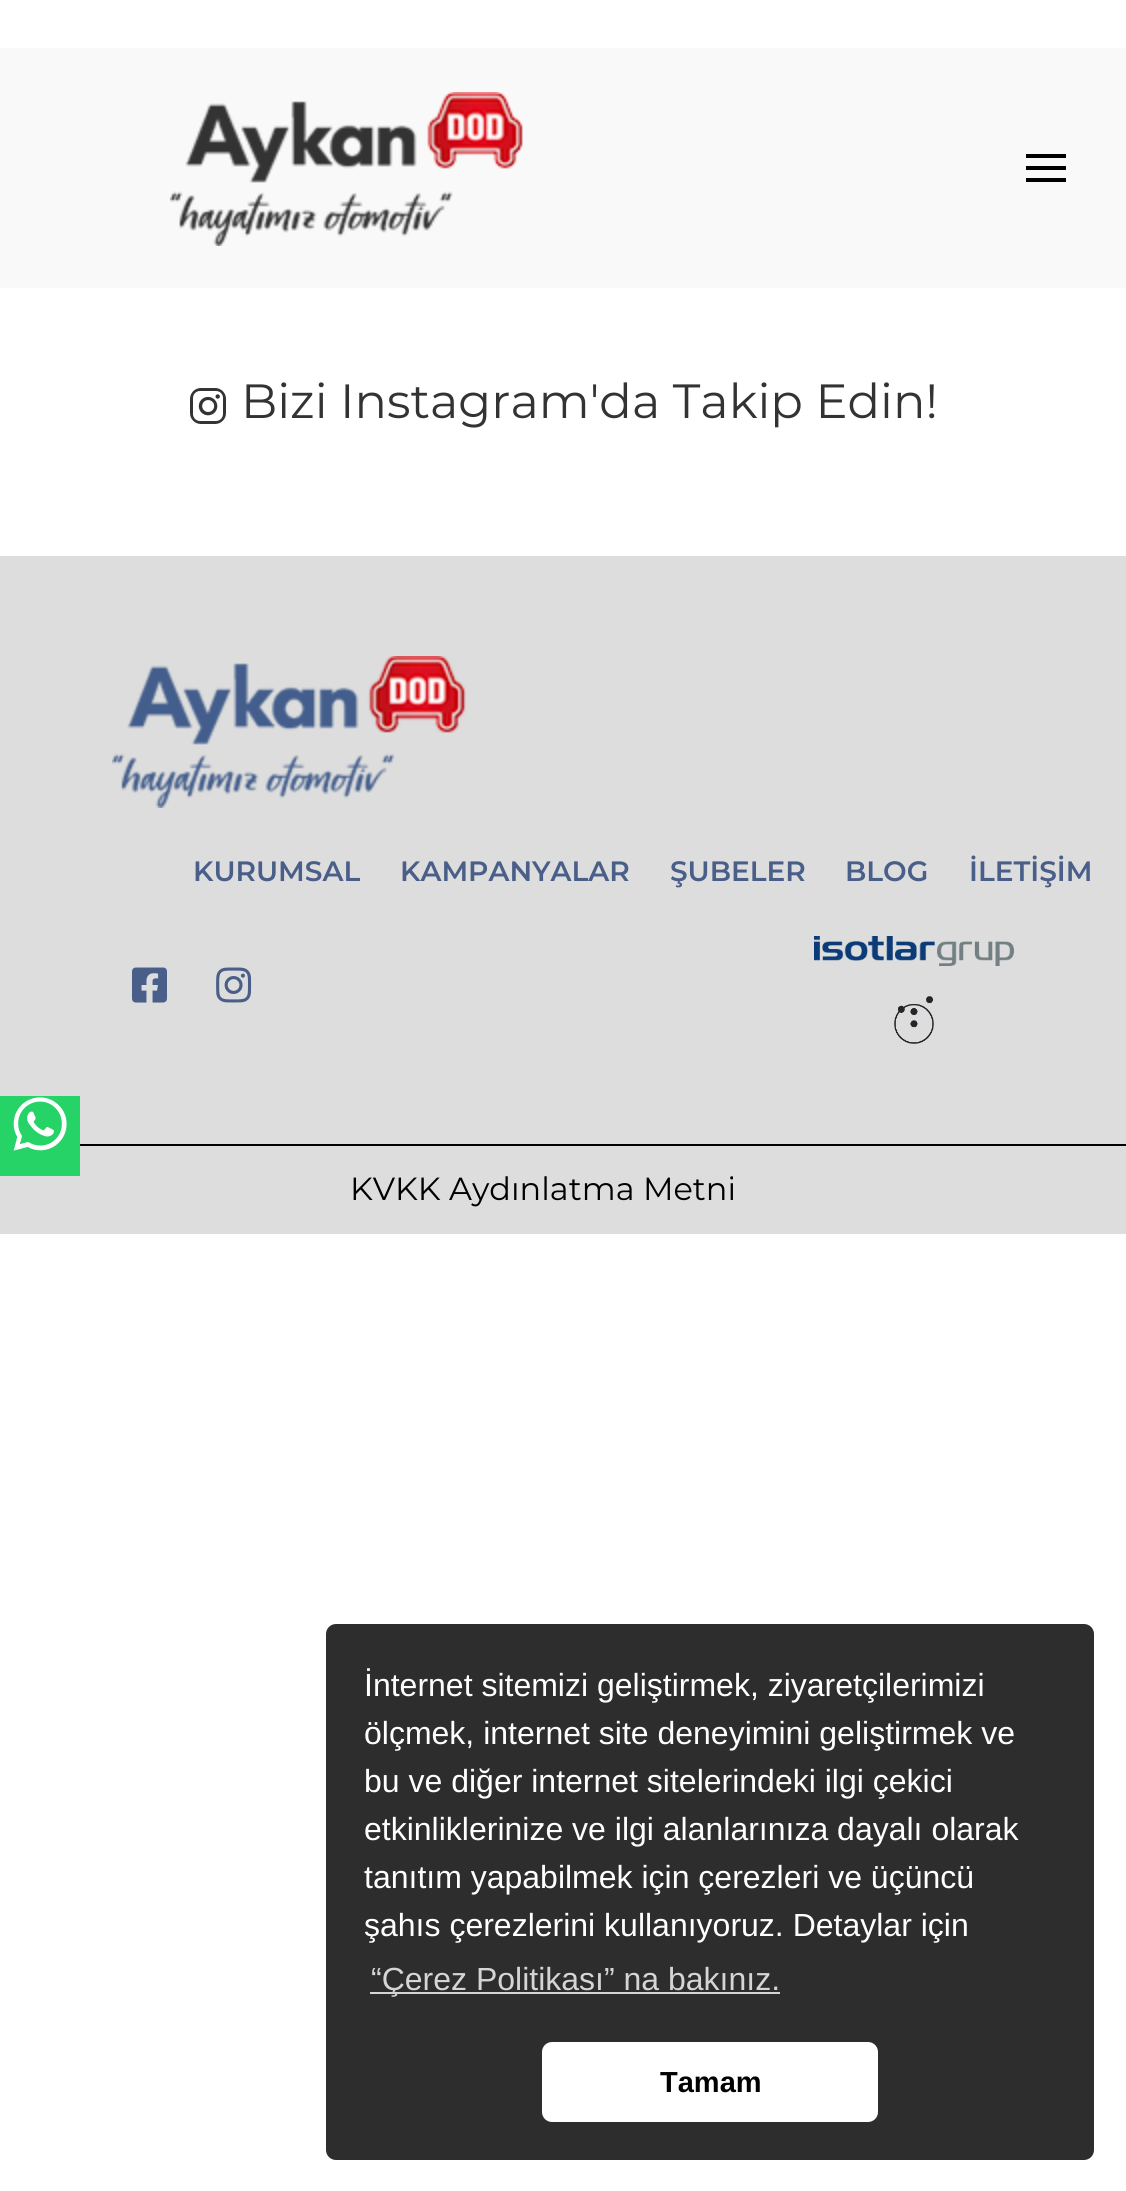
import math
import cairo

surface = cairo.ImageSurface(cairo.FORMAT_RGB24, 1126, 2191)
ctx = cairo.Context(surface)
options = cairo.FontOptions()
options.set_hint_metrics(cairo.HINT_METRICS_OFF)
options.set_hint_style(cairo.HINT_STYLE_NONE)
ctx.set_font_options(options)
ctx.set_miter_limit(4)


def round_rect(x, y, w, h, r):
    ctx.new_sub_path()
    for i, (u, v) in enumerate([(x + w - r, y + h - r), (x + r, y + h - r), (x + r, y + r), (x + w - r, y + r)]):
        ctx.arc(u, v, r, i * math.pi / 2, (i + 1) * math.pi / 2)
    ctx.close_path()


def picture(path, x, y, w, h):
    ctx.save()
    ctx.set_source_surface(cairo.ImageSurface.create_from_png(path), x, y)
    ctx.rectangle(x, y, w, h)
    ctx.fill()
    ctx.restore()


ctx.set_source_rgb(1, 1, 1)
ctx.paint()
ctx.set_source_rgb(0.973, 0.973, 0.973)
ctx.rectangle(0, 48, 1126, 240)
ctx.fill()
picture("img1.png", 170, 92, 354, 154)
ctx.set_source_rgb(0, 0, 0)
ctx.rectangle(1026, 154, 40, 4)
ctx.fill()
ctx.rectangle(1026, 166, 40, 4)
ctx.fill()
ctx.rectangle(1026, 178, 40, 4)
ctx.fill()
picture("img2.png", 190, 388, 36, 36)
ctx.select_font_face("Montserrat")
ctx.set_font_size(48)
ctx.set_source_rgb(0.2, 0.2, 0.2)
ctx.move_to(241, 418)
ctx.show_text("Bizi Instagram'da Takip Edin!")
ctx.set_source_rgb(0.867, 0.867, 0.867)
ctx.rectangle(0, 556, 1126, 588)
ctx.fill()
picture("img3.png", 112, 656, 354, 152)
ctx.select_font_face("Montserrat SemiBold")
ctx.set_font_size(28)
ctx.set_source_rgb(0.286, 0.369, 0.533)
ctx.move_to(193, 881)
ctx.show_text("KURUMSAL")
ctx.move_to(400, 881)
ctx.show_text("KAMPANYALAR")
ctx.move_to(670, 881)
ctx.show_text("ŞUBELER")
ctx.move_to(845, 881)
ctx.show_text("BLOG")
ctx.move_to(969, 881)
ctx.show_text("İLETİŞİM")
picture("img4.png", 132, 967, 35, 36)
picture("img5.png", 216, 967, 36, 36)
picture("img6.png", 814, 936, 200, 30)
picture("img7.png", 894, 996, 40, 48)
ctx.set_source_rgb(0.867, 0.867, 0.867)
ctx.rectangle(0, 1146, 1126, 88)
ctx.fill()
ctx.set_source_rgb(0.145, 0.827, 0.4)
ctx.rectangle(0, 1096, 80, 80)
ctx.fill()
picture("img8.png", 13, 1097, 54, 54)
ctx.set_source_rgb(0, 0, 0)
ctx.rectangle(80, 1144, 1046, 2)
ctx.fill()
ctx.select_font_face("Montserrat")
ctx.set_font_size(32)
ctx.move_to(350, 1200)
ctx.show_text("KVKK Aydınlatma Metni")
ctx.set_source_rgb(0.176, 0.176, 0.176)
round_rect(326, 1624, 768, 536, 10)
ctx.fill()
ctx.select_font_face("Liberation Sans")
ctx.set_source_rgb(1, 1, 1)
ctx.move_to(364, 1696)
ctx.show_text("İnternet sitemizi geliştirmek, ziyaretçilerimizi")
ctx.move_to(364, 1744)
ctx.show_text("ölçmek, internet site deneyimini geliştirmek ve")
ctx.move_to(364, 1792)
ctx.show_text("bu ve diğer internet sitelerindeki ilgi çekici")
ctx.move_to(364, 1840)
ctx.show_text("etkinliklerinize ve ilgi alanlarınıza dayalı olarak")
ctx.move_to(364, 1888)
ctx.show_text("tanıtım yapabilmek için çerezleri ve üçüncü")
ctx.move_to(364, 1936)
ctx.show_text("şahıs çerezlerini kullanıyoruz. Detaylar için")
ctx.set_source_rgb(0.835, 0.835, 0.835)
ctx.rectangle(370, 1992, 410, 2)
ctx.fill()
ctx.move_to(371, 1990)
ctx.show_text("“Çerez Politikası” na bakınız.")
ctx.set_source_rgb(1, 1, 1)
round_rect(542, 2042, 336, 80, 10)
ctx.fill()
ctx.select_font_face("Liberation Sans", cairo.FONT_SLANT_NORMAL, cairo.FONT_WEIGHT_BOLD)
ctx.set_font_size(29)
ctx.set_source_rgb(0, 0, 0)
ctx.move_to(660, 2092)
ctx.show_text("Tamam")
surface.write_to_png("page.png")
